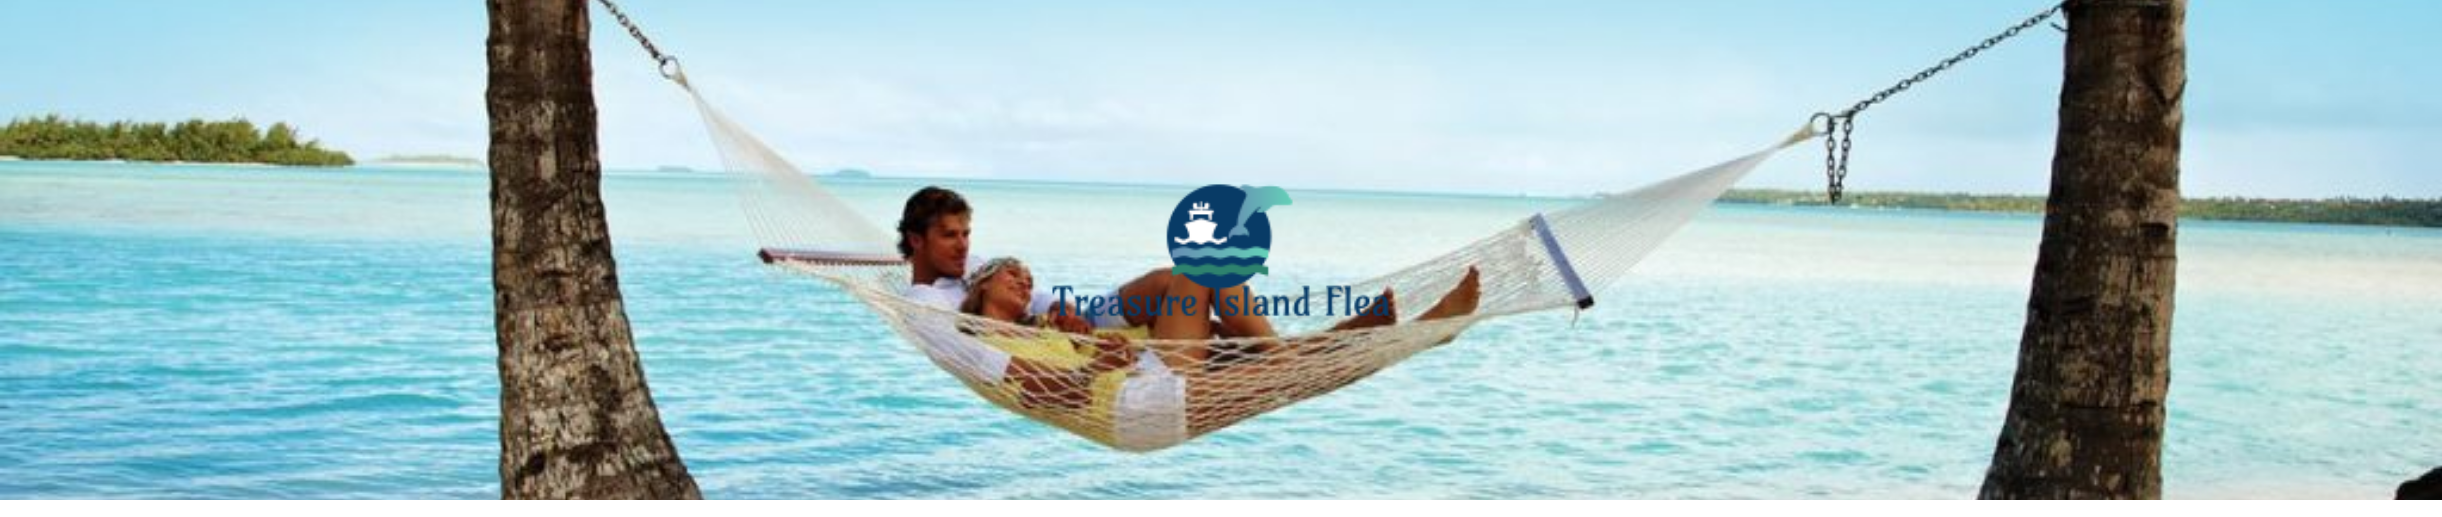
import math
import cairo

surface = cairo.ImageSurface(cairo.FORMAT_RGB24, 2442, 517)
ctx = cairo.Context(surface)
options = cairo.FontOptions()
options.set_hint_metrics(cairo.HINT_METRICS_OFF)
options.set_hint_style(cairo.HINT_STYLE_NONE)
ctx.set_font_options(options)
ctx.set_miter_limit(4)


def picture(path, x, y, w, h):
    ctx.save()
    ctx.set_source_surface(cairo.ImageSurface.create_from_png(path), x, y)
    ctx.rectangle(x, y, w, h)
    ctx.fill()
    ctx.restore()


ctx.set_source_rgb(1, 1, 1)
ctx.paint()
picture("img1.png", 0, 0, 2442, 500)
picture("img2.png", 1052, 184, 339, 133)
surface.write_to_png("page.png")
